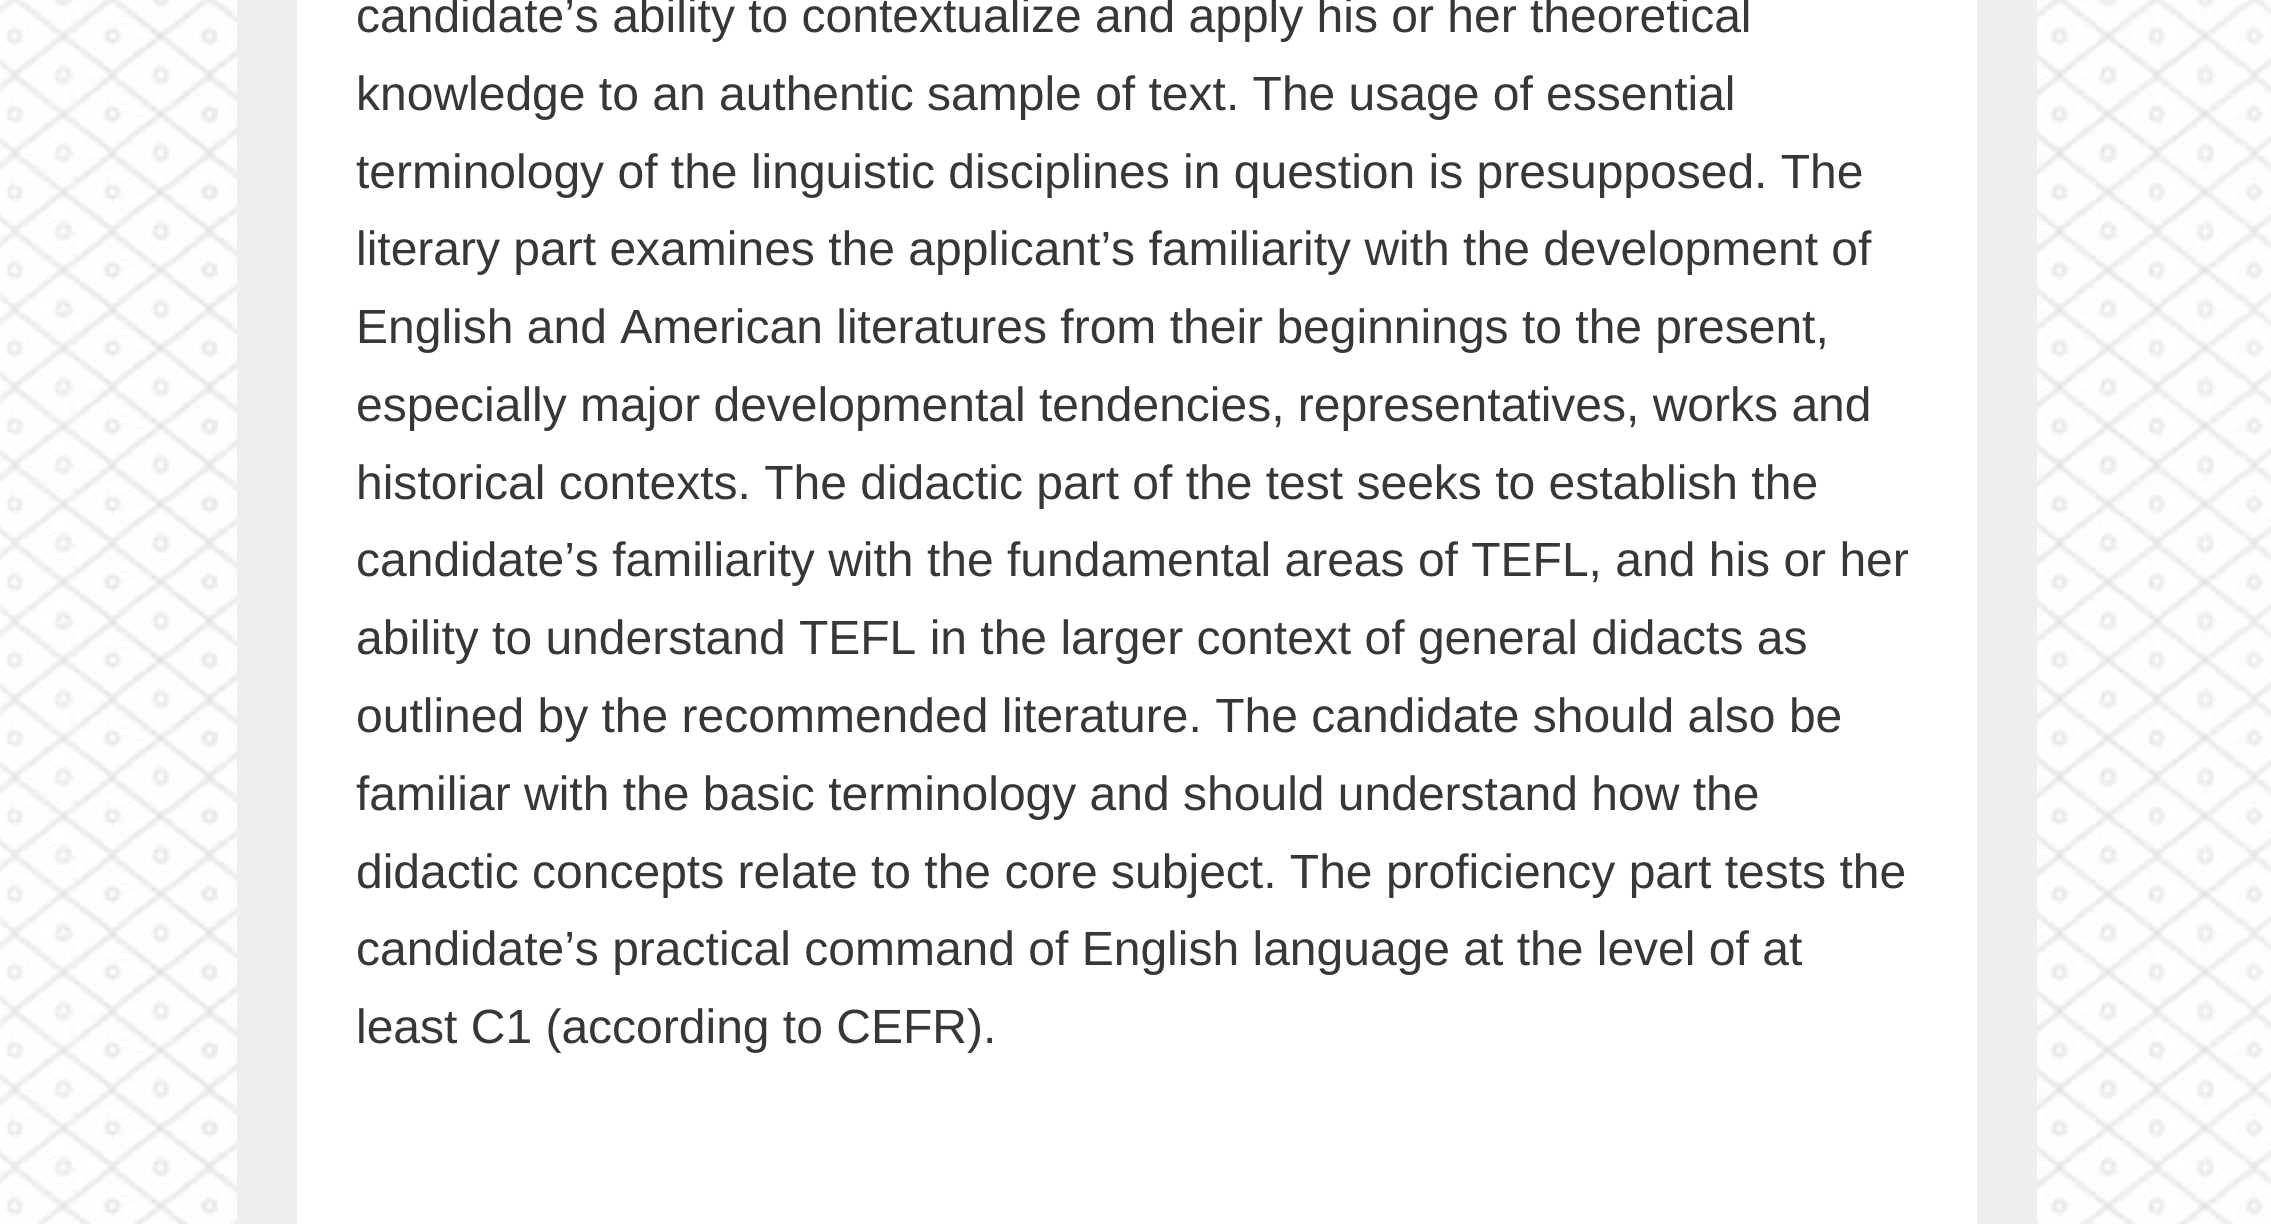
import math
import cairo

surface = cairo.ImageSurface(cairo.FORMAT_RGB24, 2271, 1224)
ctx = cairo.Context(surface)
options = cairo.FontOptions()
options.set_hint_metrics(cairo.HINT_METRICS_OFF)
options.set_hint_style(cairo.HINT_STYLE_NONE)
ctx.set_font_options(options)
ctx.set_miter_limit(4)


def picture(path, x, y, w, h):
    ctx.save()
    ctx.set_source_surface(cairo.ImageSurface.create_from_png(path), x, y)
    ctx.rectangle(x, y, w, h)
    ctx.fill()
    ctx.restore()


ctx.set_source_rgb(1, 1, 1)
ctx.paint()
picture("img1.png", 0, 0, 2271, 1224)
ctx.set_source_rgb(0.933, 0.933, 0.933)
ctx.rectangle(237, 0, 1800, 1224)
ctx.fill()
ctx.set_source_rgb(1, 1, 1)
ctx.rectangle(297, 0, 1680, 1224)
ctx.fill()
ctx.select_font_face("Liberation Sans")
ctx.set_font_size(48)
ctx.set_source_rgb(0.216, 0.216, 0.216)
ctx.move_to(356, 32)
ctx.show_text("candidate’s ability to contextualize and apply his or her theoretical")
ctx.move_to(356, 110)
ctx.show_text("knowledge to an authentic sample of text. The usage of essential")
ctx.move_to(356, 188)
ctx.show_text("terminology of the linguistic disciplines in question is presupposed. The")
ctx.move_to(356, 265)
ctx.show_text("literary part examines the applicant’s familiarity with the development of")
ctx.move_to(356, 343)
ctx.show_text("English and American literatures from their beginnings to the present,")
ctx.move_to(356, 421)
ctx.show_text("especially major developmental tendencies, representatives, works and")
ctx.move_to(356, 499)
ctx.show_text("historical contexts. The didactic part of the test seeks to establish the")
ctx.move_to(356, 576)
ctx.show_text("candidate’s familiarity with the fundamental areas of TEFL, and his or her")
ctx.move_to(356, 654)
ctx.show_text("ability to understand TEFL in the larger context of general didacts as")
ctx.move_to(356, 732)
ctx.show_text("outlined by the recommended literature. The candidate should also be")
ctx.move_to(356, 810)
ctx.show_text("familiar with the basic terminology and should understand how the")
ctx.move_to(356, 888)
ctx.show_text("didactic concepts relate to the core subject. The proficiency part tests the")
ctx.move_to(356, 965)
ctx.show_text("candidate’s practical command of English language at the level of at")
ctx.move_to(356, 1043)
ctx.show_text("least C1 (according to CEFR).")
surface.write_to_png("page.png")
